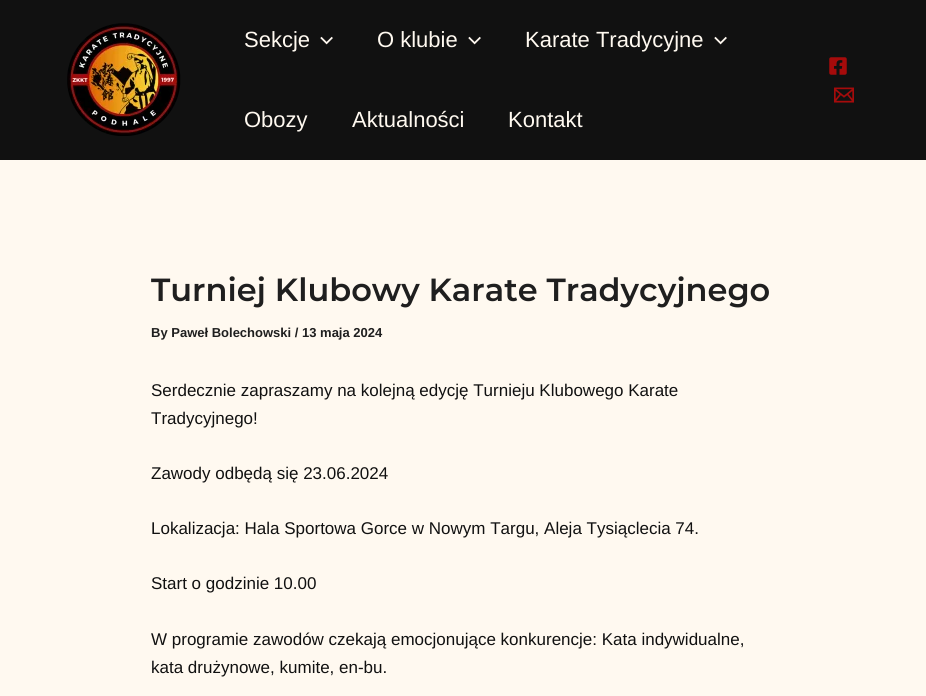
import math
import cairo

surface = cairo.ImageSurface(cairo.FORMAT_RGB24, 926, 696)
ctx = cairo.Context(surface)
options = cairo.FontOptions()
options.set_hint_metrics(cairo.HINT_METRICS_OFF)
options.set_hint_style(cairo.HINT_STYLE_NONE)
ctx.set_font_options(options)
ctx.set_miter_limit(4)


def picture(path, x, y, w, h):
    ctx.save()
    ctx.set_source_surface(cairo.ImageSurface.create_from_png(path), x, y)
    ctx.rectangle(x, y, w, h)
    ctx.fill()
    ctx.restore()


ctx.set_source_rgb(1, 0.973, 0.941)
ctx.paint()
ctx.set_source_rgb(0.067, 0.067, 0.067)
ctx.rectangle(0, 0, 926, 160)
ctx.fill()
picture("img1.png", 67, 23, 114, 113)
ctx.select_font_face("Liberation Sans")
ctx.set_font_size(22)
ctx.set_source_rgb(1, 0.973, 0.941)
ctx.move_to(244, 47)
ctx.show_text("Sekcje")
picture("img2.png", 320, 36, 13, 9)
ctx.move_to(377, 47)
ctx.show_text("O klubie")
picture("img2.png", 468, 36, 13, 9)
ctx.move_to(525, 47)
ctx.show_text("Karate Tradycyjne")
picture("img2.png", 714, 36, 13, 9)
ctx.move_to(244, 127)
ctx.show_text("Obozy")
ctx.move_to(352, 127)
ctx.show_text("Aktualności")
ctx.move_to(508, 127)
ctx.show_text("Kontakt")
picture("img3.png", 829, 57, 18, 18)
picture("img4.png", 834, 87, 20, 16)
ctx.select_font_face("Montserrat SemiBold")
ctx.set_font_size(32)
ctx.set_source_rgb(0.122, 0.122, 0.122)
ctx.move_to(151, 301)
ctx.show_text("Turniej Klubowy Karate Tradycyjnego")
ctx.select_font_face("Liberation Sans", cairo.FONT_SLANT_NORMAL, cairo.FONT_WEIGHT_BOLD)
ctx.set_font_size(13)
ctx.move_to(151, 337)
ctx.show_text("By Paweł Bolechowski / 13 maja 2024")
ctx.select_font_face("Liberation Sans")
ctx.set_font_size(17)
ctx.set_source_rgb(0.067, 0.067, 0.067)
ctx.move_to(151, 396)
ctx.show_text("Serdecznie zapraszamy na kolejną edycję Turnieju Klubowego Karate")
ctx.move_to(151, 424)
ctx.show_text("Tradycyjnego!")
ctx.move_to(151, 479)
ctx.show_text("Zawody odbędą się 23.06.2024")
ctx.move_to(151, 534)
ctx.show_text("Lokalizacja: Hala Sportowa Gorce w Nowym Targu, Aleja Tysiąclecia 74.")
ctx.move_to(151, 589)
ctx.show_text("Start o godzinie 10.00")
ctx.move_to(151, 645)
ctx.show_text("W programie zawodów czekają emocjonujące konkurencje: Kata indywidualne,")
ctx.move_to(151, 673)
ctx.show_text("kata drużynowe, kumite, en-bu.")
surface.write_to_png("page.png")
